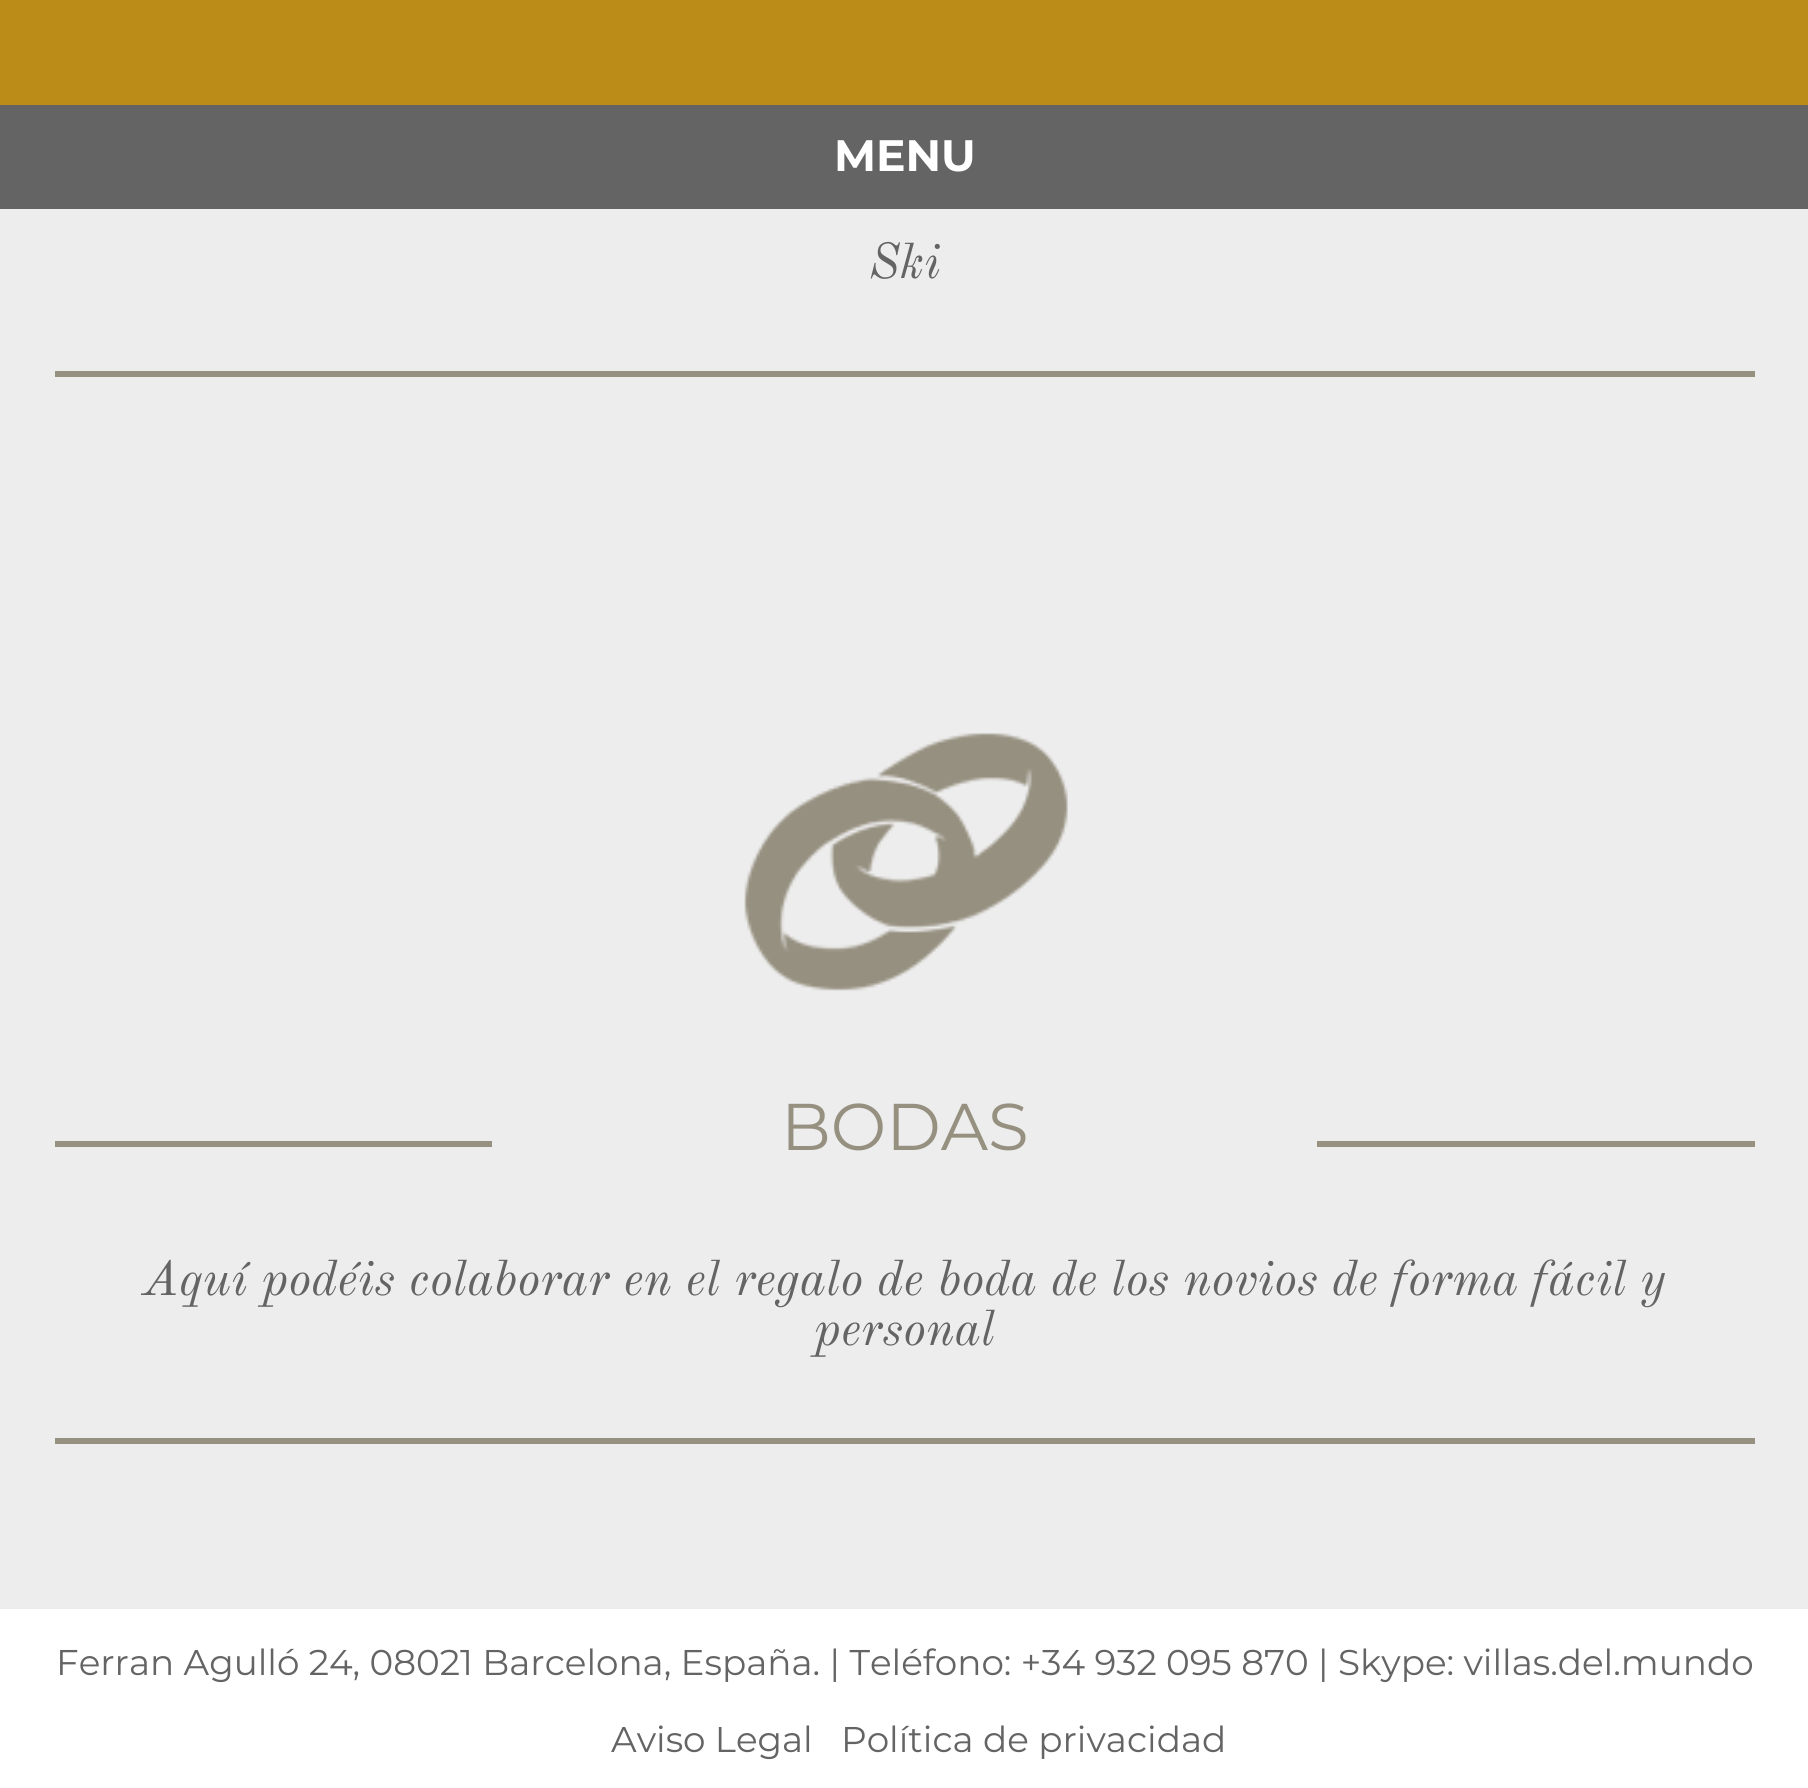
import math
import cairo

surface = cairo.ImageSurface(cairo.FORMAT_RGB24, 1808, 1788)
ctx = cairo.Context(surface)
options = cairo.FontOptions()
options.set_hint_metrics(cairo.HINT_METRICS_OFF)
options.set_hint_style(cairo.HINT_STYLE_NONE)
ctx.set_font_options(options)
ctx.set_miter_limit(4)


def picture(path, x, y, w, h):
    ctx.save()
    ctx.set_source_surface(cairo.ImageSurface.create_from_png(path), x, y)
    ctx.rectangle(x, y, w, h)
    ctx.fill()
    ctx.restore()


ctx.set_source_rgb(1, 1, 1)
ctx.paint()
ctx.set_source_rgb(0.733, 0.549, 0.094)
ctx.rectangle(0, 0, 1808, 105)
ctx.fill()
ctx.set_source_rgb(0.392, 0.392, 0.392)
ctx.rectangle(0, 105, 1808, 104)
ctx.fill()
ctx.select_font_face("Montserrat", cairo.FONT_SLANT_NORMAL, cairo.FONT_WEIGHT_BOLD)
ctx.set_font_size(44)
ctx.set_source_rgb(1, 1, 1)
ctx.move_to(834, 171)
ctx.show_text("MENU")
ctx.set_source_rgb(0.929, 0.929, 0.929)
ctx.rectangle(0, 209, 1808, 1400)
ctx.fill()
ctx.set_source_rgb(0.588, 0.565, 0.502)
ctx.rectangle(55, 371, 1700, 6)
ctx.fill()
ctx.select_font_face("Old Standard TT", cairo.FONT_SLANT_ITALIC)
ctx.set_font_size(49.5)
ctx.set_source_rgb(0.392, 0.392, 0.392)
ctx.move_to(869, 278)
ctx.show_text("Ski")
picture("img1.png", 744, 733, 324, 258)
ctx.set_source_rgb(0.588, 0.565, 0.502)
ctx.rectangle(55, 1141, 1700, 6)
ctx.fill()
ctx.set_source_rgb(0.929, 0.929, 0.929)
ctx.rectangle(492, 1141, 825, 6)
ctx.fill()
ctx.select_font_face("Montserrat")
ctx.set_font_size(66)
ctx.set_source_rgb(0.588, 0.565, 0.502)
ctx.move_to(781, 1150)
ctx.show_text("BODAS")
ctx.rectangle(55, 1438, 1700, 6)
ctx.fill()
ctx.select_font_face("Old Standard TT", cairo.FONT_SLANT_ITALIC)
ctx.set_font_size(49.5)
ctx.set_source_rgb(0.392, 0.392, 0.392)
ctx.move_to(143, 1295)
ctx.show_text("Aquí podéis colaborar en el regalo de boda de los novios de forma fácil y")
ctx.move_to(814, 1345)
ctx.show_text("personal")
ctx.set_source_rgba(1, 1, 1, 0.05)
ctx.new_path()
ctx.move_to(950.5, 1638)
ctx.line_to(954.5, 1641.5)
ctx.line_to(935, 1661)
ctx.line_to(931, 1657.5)
ctx.close_path()
ctx.fill()
ctx.new_path()
ctx.move_to(919.5, 1638)
ctx.line_to(939, 1657.5)
ctx.line_to(935, 1661)
ctx.line_to(915.5, 1642)
ctx.close_path()
ctx.fill()
ctx.select_font_face("Montserrat")
ctx.set_font_size(35.75)
ctx.set_source_rgb(0.392, 0.392, 0.392)
ctx.move_to(56, 1675)
ctx.show_text("Ferran Agulló 24, 08021 Barcelona, España. | Teléfono: +34 932 095 870 | Skype: villas.del.mundo")
ctx.move_to(611, 1752)
ctx.show_text("Aviso Legal")
ctx.move_to(841, 1752)
ctx.show_text("Política de privacidad")
surface.write_to_png("page.png")
